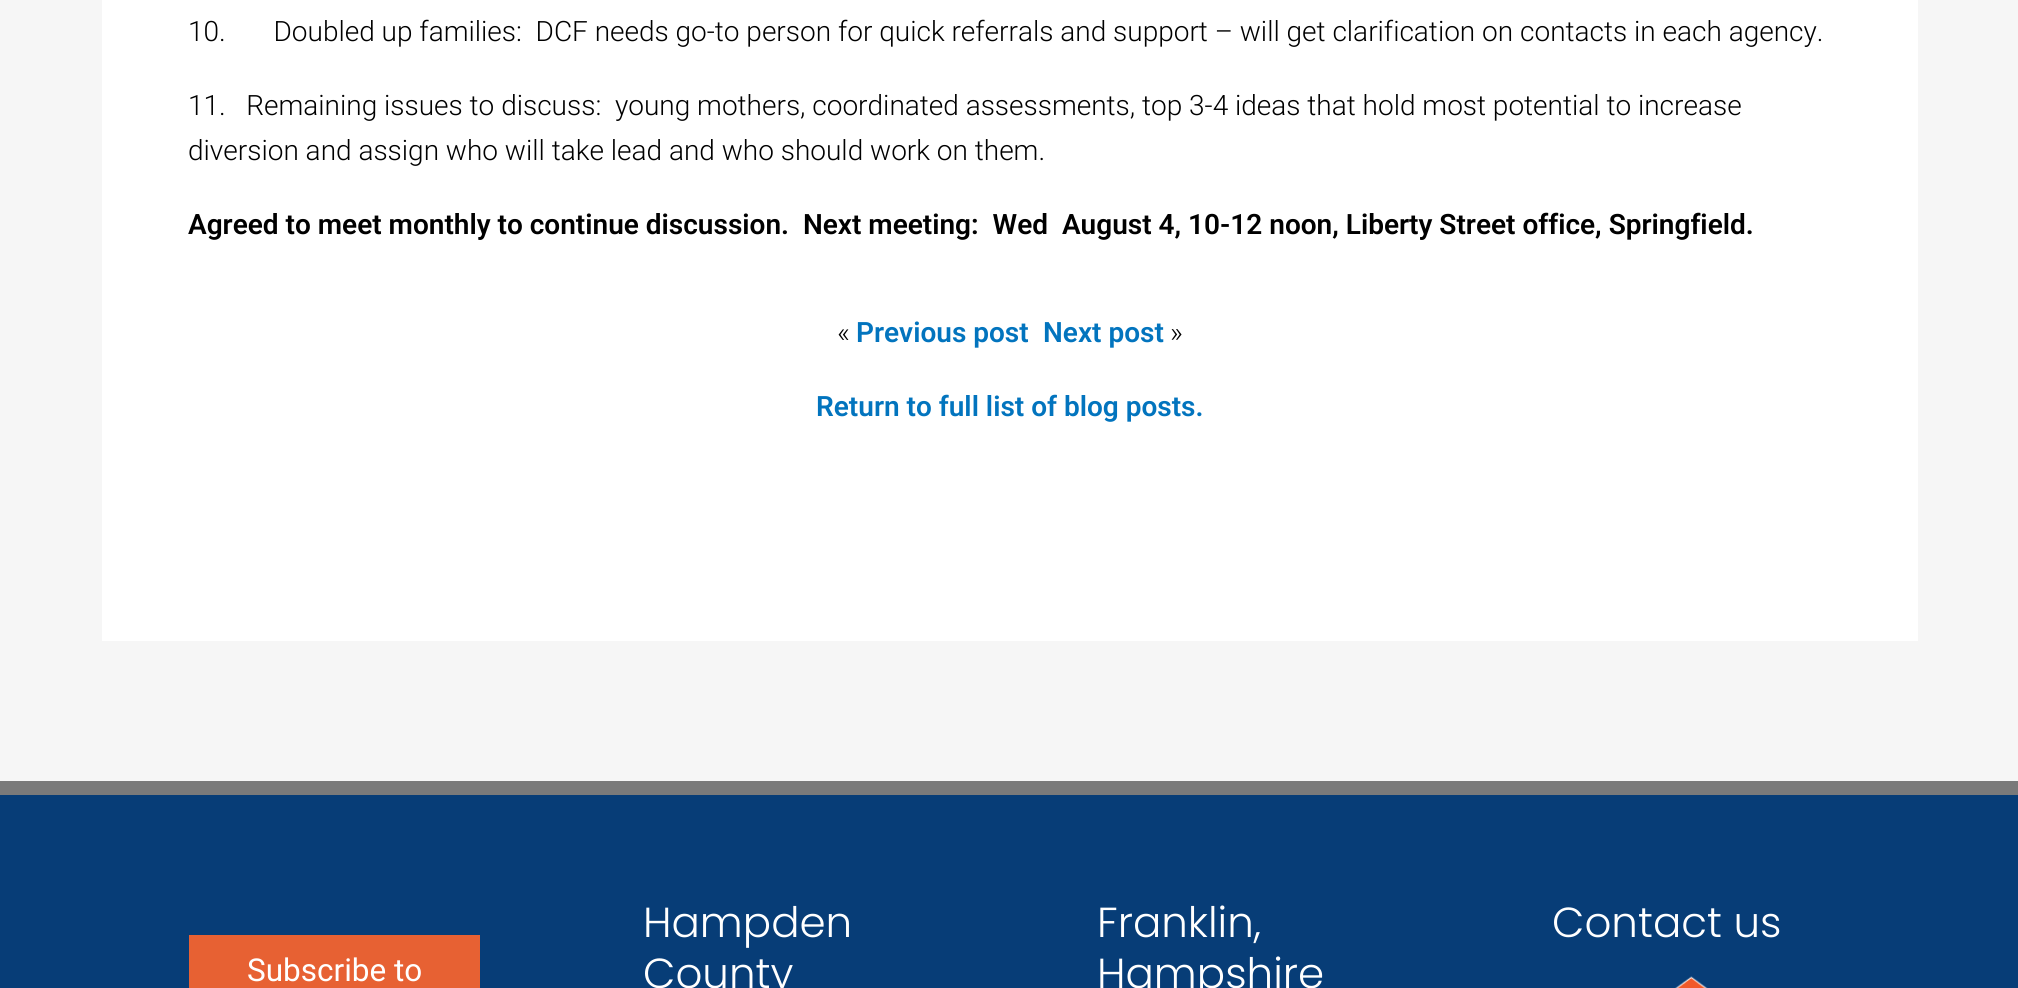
import math
import cairo

surface = cairo.ImageSurface(cairo.FORMAT_RGB24, 2018, 988)
ctx = cairo.Context(surface)
options = cairo.FontOptions()
options.set_hint_metrics(cairo.HINT_METRICS_OFF)
options.set_hint_style(cairo.HINT_STYLE_NONE)
ctx.set_font_options(options)
ctx.set_miter_limit(4)


def picture(path, x, y, w, h):
    ctx.save()
    ctx.set_source_surface(cairo.ImageSurface.create_from_png(path), x, y)
    ctx.rectangle(x, y, w, h)
    ctx.fill()
    ctx.restore()


ctx.set_source_rgb(0.961, 0.961, 0.961)
ctx.paint()
ctx.set_source_rgb(1, 1, 1)
ctx.rectangle(102, 0, 1816, 641)
ctx.fill()
ctx.select_font_face("Roboto Light")
ctx.set_font_size(28)
ctx.set_source_rgb(0, 0, 0)
ctx.move_to(188, 41)
ctx.show_text("10.       Doubled up families:  DCF needs go-to person for quick referrals and support – will get clarification on contacts in each agency.")
ctx.move_to(188, 115)
ctx.show_text("11.   Remaining issues to discuss:  young mothers, coordinated assessments, top 3-4 ideas that hold most potential to increase")
ctx.move_to(188, 160)
ctx.show_text("diversion and assign who will take lead and who should work on them.")
ctx.select_font_face("Roboto SemiBold")
ctx.move_to(188, 234)
ctx.show_text("Agreed to meet monthly to continue discussion.  Next meeting:  Wed  August 4, 10-12 noon, Liberty Street office, Springfield.")
ctx.select_font_face("Roboto Light")
ctx.move_to(837, 342)
ctx.show_text("«")
ctx.select_font_face("Roboto SemiBold")
ctx.set_source_rgb(0.008, 0.455, 0.745)
ctx.move_to(856, 342)
ctx.show_text("Previous post")
ctx.move_to(1043, 342)
ctx.show_text("Next post")
ctx.select_font_face("Roboto Light")
ctx.set_source_rgb(0, 0, 0)
ctx.move_to(1170, 342)
ctx.show_text("»")
ctx.select_font_face("Roboto SemiBold")
ctx.set_source_rgb(0.008, 0.455, 0.745)
ctx.move_to(816, 416)
ctx.show_text("Return to full list of blog posts.")
ctx.set_source_rgb(0.031, 0.239, 0.467)
ctx.rectangle(0, 795, 2018, 193)
ctx.fill()
ctx.set_source_rgb(0.478, 0.478, 0.478)
ctx.rectangle(0, 781, 2018, 14)
ctx.fill()
ctx.select_font_face("Poppins Light")
ctx.set_font_size(42)
ctx.set_source_rgb(1, 1, 1)
ctx.move_to(643, 937)
ctx.show_text("Hampden")
ctx.move_to(643, 988)
ctx.show_text("County")
ctx.move_to(1097, 937)
ctx.show_text("Franklin,")
ctx.move_to(1097, 988)
ctx.show_text("Hampshire")
ctx.move_to(1552, 937)
ctx.show_text("Contact us")
picture("img1.png", 1675, 976, 33, 12)
ctx.set_source_rgb(0.906, 0.38, 0.2)
ctx.rectangle(189, 935, 291, 53)
ctx.fill()
ctx.select_font_face("Roboto")
ctx.set_font_size(31.5)
ctx.set_source_rgb(1, 1, 1)
ctx.move_to(247, 981)
ctx.show_text("Subscribe to")
surface.write_to_png("page.png")
